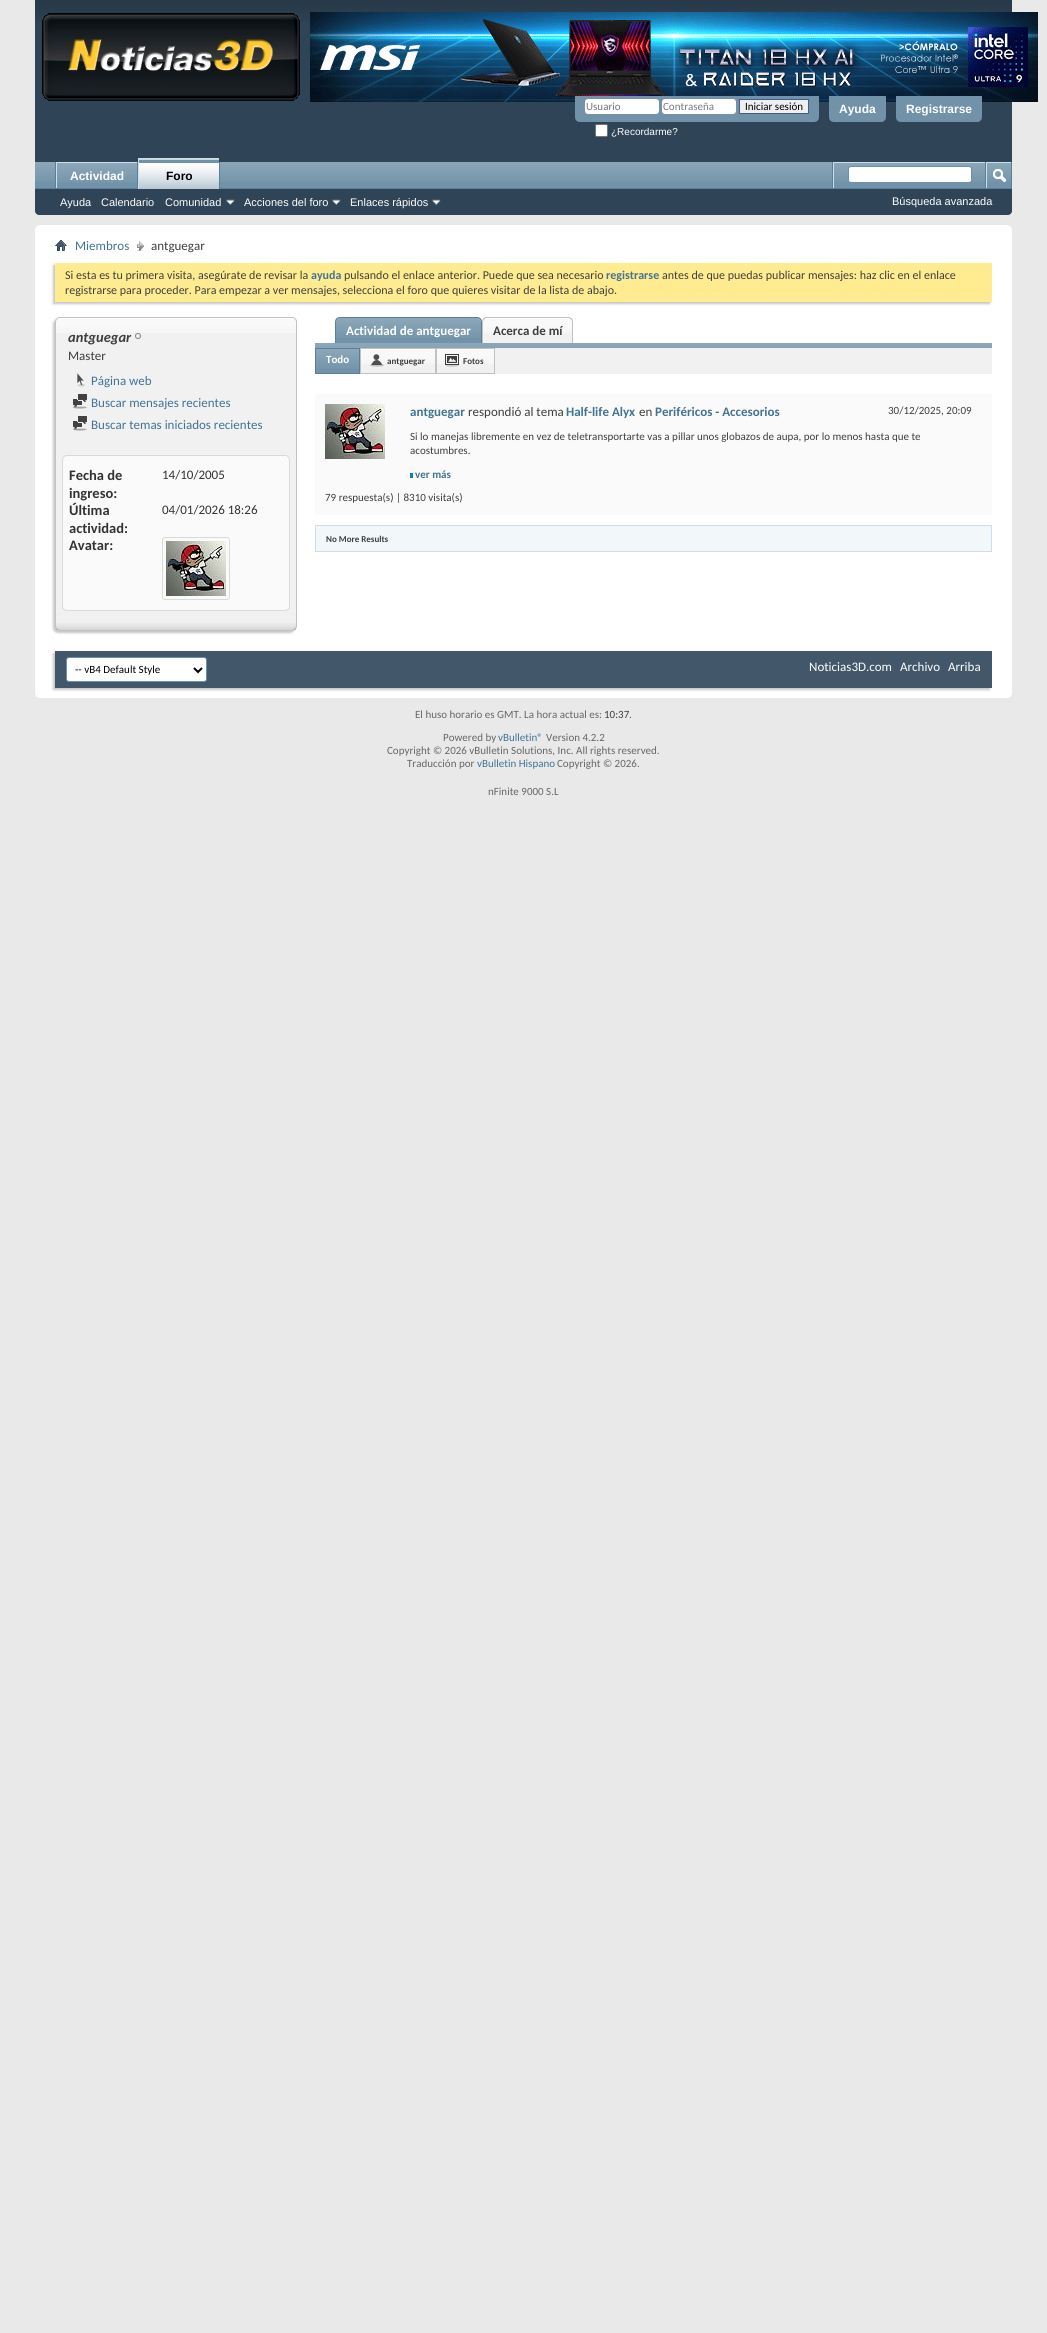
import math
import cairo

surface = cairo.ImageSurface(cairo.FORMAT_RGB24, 1047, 2333)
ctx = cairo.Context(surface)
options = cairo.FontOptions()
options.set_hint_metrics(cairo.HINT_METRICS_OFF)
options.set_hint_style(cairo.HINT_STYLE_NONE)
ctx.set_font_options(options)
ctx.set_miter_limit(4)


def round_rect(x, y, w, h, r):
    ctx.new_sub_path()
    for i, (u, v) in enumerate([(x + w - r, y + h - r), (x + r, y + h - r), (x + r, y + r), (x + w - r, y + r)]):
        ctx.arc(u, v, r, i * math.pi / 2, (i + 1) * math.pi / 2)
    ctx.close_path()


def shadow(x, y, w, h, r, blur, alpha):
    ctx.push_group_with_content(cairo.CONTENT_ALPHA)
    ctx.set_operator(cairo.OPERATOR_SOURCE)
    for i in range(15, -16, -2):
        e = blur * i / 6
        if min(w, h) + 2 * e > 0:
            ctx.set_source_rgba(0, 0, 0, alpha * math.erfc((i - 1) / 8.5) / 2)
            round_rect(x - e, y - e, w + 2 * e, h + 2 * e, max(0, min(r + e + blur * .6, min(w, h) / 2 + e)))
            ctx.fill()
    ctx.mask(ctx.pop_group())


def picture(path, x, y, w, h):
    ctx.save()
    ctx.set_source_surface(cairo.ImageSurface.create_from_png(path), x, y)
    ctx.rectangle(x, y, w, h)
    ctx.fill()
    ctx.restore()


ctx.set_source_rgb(0.914, 0.914, 0.914)
ctx.paint()
ctx.set_source_rgb(0.184, 0.267, 0.337)
ctx.new_path()
ctx.move_to(35, 0)
ctx.line_to(1012, 0)
ctx.line_to(1012, 210)
ctx.curve_to(1012, 213, 1010, 215, 1007, 215)
ctx.line_to(40, 215)
ctx.curve_to(37, 215, 35, 213, 35, 210)
ctx.close_path()
ctx.fill()
picture("img1.png", 35, 0, 977, 22)
picture("img2.png", 42, 13, 258, 88)
picture("img3.png", 310, 12, 728, 90)
ctx.set_source_rgb(0.443, 0.573, 0.659)
ctx.new_path()
ctx.move_to(575, 96)
ctx.line_to(819, 96)
ctx.line_to(819, 117)
ctx.curve_to(819, 120, 817, 122, 814, 122)
ctx.line_to(580, 122)
ctx.curve_to(577, 122, 575, 120, 575, 117)
ctx.close_path()
ctx.fill()
ctx.set_source_rgb(1, 1, 1)
round_rect(585, 99, 74, 15, 3)
ctx.fill()
ctx.select_font_face("Carlito")
ctx.set_font_size(11)
ctx.set_source_rgb(0.467, 0.467, 0.467)
ctx.move_to(586, 110)
ctx.show_text("Usuario")
ctx.set_source_rgb(1, 1, 1)
round_rect(662, 99, 74, 15, 3)
ctx.fill()
ctx.set_source_rgb(0.467, 0.467, 0.467)
ctx.move_to(663, 110)
ctx.show_text("Contraseña")
ctx.set_source_rgb(0.937, 0.937, 0.937)
ctx.rectangle(739.5, 99.5, 69, 14)
ctx.fill_preserve()
ctx.set_source_rgb(0.255, 0.365, 0.553)
ctx.set_line_width(1)
ctx.stroke()
ctx.set_source_rgb(0, 0, 0)
ctx.move_to(745, 110)
ctx.show_text("Iniciar sesión")
ctx.set_source_rgb(1, 1, 1)
round_rect(595.5, 124.5, 12, 12, 1.5)
ctx.fill_preserve()
ctx.set_source_rgb(0.463, 0.463, 0.463)
ctx.stroke()
ctx.select_font_face("Liberation Sans")
ctx.set_font_size(10)
ctx.set_source_rgb(1, 1, 1)
ctx.move_to(611, 135)
ctx.show_text("¿Recordarme?")
ctx.set_source_rgb(0.443, 0.573, 0.659)
ctx.new_path()
ctx.move_to(829, 96)
ctx.line_to(886, 96)
ctx.line_to(886, 117)
ctx.curve_to(886, 120, 884, 122, 881, 122)
ctx.line_to(834, 122)
ctx.curve_to(831, 122, 829, 120, 829, 117)
ctx.close_path()
ctx.fill()
ctx.select_font_face("Liberation Sans", cairo.FONT_SLANT_NORMAL, cairo.FONT_WEIGHT_BOLD)
ctx.set_font_size(12)
ctx.set_source_rgb(1, 1, 1)
ctx.move_to(839, 113)
ctx.show_text("Ayuda")
ctx.set_source_rgb(0.443, 0.573, 0.659)
ctx.new_path()
ctx.move_to(896, 96)
ctx.line_to(982, 96)
ctx.line_to(982, 117)
ctx.curve_to(982, 120, 980, 122, 977, 122)
ctx.line_to(901, 122)
ctx.curve_to(898, 122, 896, 120, 896, 117)
ctx.close_path()
ctx.fill()
ctx.set_source_rgb(1, 1, 1)
ctx.move_to(906, 113)
ctx.show_text("Registrarse")
ctx.set_source_rgb(0.184, 0.267, 0.337)
ctx.new_path()
ctx.move_to(35, 162)
ctx.line_to(1012, 162)
ctx.line_to(1012, 210)
ctx.curve_to(1012, 213, 1010, 215, 1007, 215)
ctx.line_to(40, 215)
ctx.curve_to(37, 215, 35, 213, 35, 210)
ctx.close_path()
ctx.fill()
ctx.set_source_rgb(0.443, 0.573, 0.659)
ctx.rectangle(35, 162, 976, 26)
ctx.fill()
picture("img4.png", 35, 162, 976, 20)
ctx.set_source_rgb(0.353, 0.498, 0.592)
ctx.rectangle(137, 162, 1, 27)
ctx.fill()
ctx.rectangle(55, 162, 1, 27)
ctx.fill()
ctx.set_source_rgb(0.443, 0.573, 0.659)
ctx.rectangle(57, 163, 80, 19)
ctx.fill()
picture("img5.png", 57, 163, 80, 20)
ctx.set_source_rgb(0.808, 0.875, 0.922)
ctx.rectangle(56, 162, 81, 1)
ctx.fill()
ctx.rectangle(56, 162, 1, 27)
ctx.fill()
ctx.set_source_rgb(1, 1, 1)
ctx.move_to(70, 180)
ctx.show_text("Actividad")
ctx.set_source_rgb(0.353, 0.498, 0.592)
ctx.rectangle(219, 162, 1, 26)
ctx.fill()
ctx.rectangle(35, 188, 977, 1)
ctx.fill()
ctx.set_source_rgb(0.443, 0.573, 0.659)
ctx.rectangle(139, 159, 80, 30)
ctx.fill()
picture("img6.png", 139, 159, 80, 30)
ctx.set_source_rgb(0.808, 0.875, 0.922)
ctx.rectangle(138, 158, 81, 1)
ctx.fill()
ctx.rectangle(138, 158, 1, 31)
ctx.fill()
ctx.set_source_rgb(0, 0, 0)
ctx.move_to(166, 180)
ctx.show_text("Foro")
ctx.select_font_face("Liberation Sans")
ctx.set_font_size(11)
ctx.set_source_rgb(1, 1, 1)
ctx.move_to(60, 206)
ctx.show_text("Ayuda")
ctx.move_to(101, 206)
ctx.show_text("Calendario")
ctx.move_to(165, 206)
ctx.show_text("Comunidad")
picture("img7.png", 226, 199, 9, 6)
ctx.move_to(244, 206)
ctx.show_text("Acciones del foro")
picture("img7.png", 332, 199, 9, 6)
ctx.move_to(350, 206)
ctx.show_text("Enlaces rápidos")
picture("img7.png", 432, 199, 9, 6)
ctx.set_source_rgb(0.353, 0.498, 0.592)
ctx.rectangle(832, 162, 1, 26)
ctx.fill()
ctx.set_source_rgb(0.808, 0.875, 0.922)
ctx.rectangle(833, 162, 152, 1)
ctx.fill()
ctx.rectangle(833, 162, 1, 26)
ctx.fill()
ctx.set_source_rgb(1, 1, 1)
round_rect(848.5, 166.5, 123, 16, 2.5)
ctx.fill_preserve()
ctx.set_source_rgb(0.42, 0.569, 0.671)
ctx.stroke()
ctx.set_source_rgb(0.353, 0.498, 0.592)
ctx.rectangle(1011, 162, 1, 26)
ctx.fill()
ctx.rectangle(985, 162, 1, 26)
ctx.fill()
ctx.set_source_rgb(0.808, 0.875, 0.922)
ctx.rectangle(986, 162, 25, 1)
ctx.fill()
ctx.rectangle(986, 162, 1, 26)
ctx.fill()
picture("img8.png", 993, 169, 13, 14)
ctx.set_source_rgb(1, 1, 1)
ctx.move_to(892, 205)
ctx.show_text("Búsqueda avanzada")
round_rect(35, 225, 977, 473, 5)
ctx.fill()
picture("img9.png", 55, 240, 12, 11)
picture("img10.png", 137, 241, 7, 10)
ctx.select_font_face("Carlito")
ctx.set_font_size(13)
ctx.set_source_rgb(0.255, 0.451, 0.58)
ctx.move_to(75, 250)
ctx.show_text("Miembros")
ctx.set_source_rgb(0.243, 0.243, 0.243)
ctx.move_to(151, 250)
ctx.show_text("antguegar")
ctx.set_source_rgb(0.784, 0.784, 0.784)
shadow(53, 265, 937, 39, 0, 1, 1)
ctx.set_source_rgb(1, 0.922, 0.565)
ctx.rectangle(55, 263, 937, 39)
ctx.fill()
ctx.set_font_size(12)
ctx.set_source_rgb(0.243, 0.243, 0.243)
ctx.move_to(65, 279)
ctx.show_text("Si esta es tu primera visita, asegúrate de revisar la")
ctx.select_font_face("Carlito", cairo.FONT_SLANT_NORMAL, cairo.FONT_WEIGHT_BOLD)
ctx.set_source_rgb(0.255, 0.451, 0.58)
ctx.move_to(311, 279)
ctx.show_text("ayuda")
ctx.select_font_face("Carlito")
ctx.set_source_rgb(0.243, 0.243, 0.243)
ctx.move_to(344, 279)
ctx.show_text("pulsando el enlace anterior. Puede que sea necesario")
ctx.select_font_face("Carlito", cairo.FONT_SLANT_NORMAL, cairo.FONT_WEIGHT_BOLD)
ctx.set_source_rgb(0.255, 0.451, 0.58)
ctx.move_to(606, 279)
ctx.show_text("registrarse")
ctx.select_font_face("Carlito")
ctx.set_source_rgb(0.243, 0.243, 0.243)
ctx.move_to(662, 279)
ctx.show_text("antes de que puedas publicar mensajes: haz clic en el enlace")
ctx.move_to(65, 294)
ctx.show_text("registrarse para proceder. Para empezar a ver mensajes, selecciona el foro que quieres visitar de la lista de abajo.")
ctx.set_source_rgb(0.784, 0.784, 0.784)
shadow(53, 319, 242, 314, 5, 1, 1)
ctx.set_source_rgb(0.945, 0.945, 0.945)
round_rect(55, 317, 242, 314, 5)
ctx.fill()
picture("img11.png", 55, 318, 242, 15)
round_rect(55.5, 317.5, 241, 313, 4.5)
ctx.set_source_rgb(0.757, 0.757, 0.757)
ctx.stroke()
picture("img12.png", 58, 318, 236, 1)
ctx.select_font_face("Carlito", cairo.FONT_SLANT_ITALIC, cairo.FONT_WEIGHT_BOLD)
ctx.set_font_size(14.5)
ctx.set_source_rgb(0.243, 0.243, 0.243)
ctx.move_to(68, 342)
ctx.show_text("antguegar")
picture("img13.png", 135, 333, 6, 6)
ctx.select_font_face("Carlito")
ctx.set_font_size(13)
ctx.move_to(68, 360)
ctx.show_text("Master")
picture("img14.png", 77, 373, 9, 14)
ctx.set_source_rgb(0.255, 0.451, 0.58)
ctx.move_to(91, 385)
ctx.show_text("Página web")
picture("img15.png", 72, 394, 15, 15)
ctx.move_to(91, 407)
ctx.show_text("Buscar mensajes recientes")
picture("img15.png", 72, 416, 15, 15)
ctx.move_to(91, 429)
ctx.show_text("Buscar temas iniciados recientes")
round_rect(62.5, 455.5, 227, 155, 4.5)
ctx.set_source_rgb(0.855, 0.855, 0.855)
ctx.stroke()
ctx.set_source_rgb(0.98, 0.98, 0.98)
round_rect(63, 456, 226, 154, 5)
ctx.fill()
ctx.rectangle(286, 456, 1, 1)
ctx.fill()
ctx.select_font_face("Carlito", cairo.FONT_SLANT_NORMAL, cairo.FONT_WEIGHT_BOLD)
ctx.set_font_size(14.5)
ctx.set_source_rgb(0.2, 0.2, 0.2)
ctx.move_to(69, 480)
ctx.show_text("Fecha de")
ctx.move_to(69, 498)
ctx.show_text("ingreso:")
ctx.select_font_face("Carlito")
ctx.set_font_size(13)
ctx.move_to(162, 479)
ctx.show_text("14/10/2005")
ctx.select_font_face("Carlito", cairo.FONT_SLANT_NORMAL, cairo.FONT_WEIGHT_BOLD)
ctx.set_font_size(14.5)
ctx.move_to(69, 515)
ctx.show_text("Última")
ctx.move_to(69, 533)
ctx.show_text("actividad:")
ctx.select_font_face("Carlito")
ctx.set_font_size(13)
ctx.move_to(162, 514)
ctx.show_text("04/01/2026 18:26")
ctx.select_font_face("Carlito", cairo.FONT_SLANT_NORMAL, cairo.FONT_WEIGHT_BOLD)
ctx.set_font_size(14.5)
ctx.move_to(69, 550)
ctx.show_text("Avatar:")
round_rect(162.5, 537.5, 67, 62, 2.5)
ctx.set_source_rgb(0.855, 0.855, 0.855)
ctx.stroke()
picture("img16.png", 166, 541, 60, 55)
picture("img17.png", 56, 623, 240, 7)
ctx.set_source_rgb(0.443, 0.573, 0.659)
ctx.new_path()
ctx.move_to(340, 318)
ctx.line_to(477, 318)
ctx.curve_to(479, 318, 481, 320, 481, 322)
ctx.line_to(481, 343)
ctx.line_to(336, 343)
ctx.line_to(336, 322)
ctx.curve_to(336, 320, 338, 318, 340, 318)
ctx.close_path()
ctx.fill()
picture("img18.png", 336, 318, 145, 20)
ctx.set_source_rgb(0.353, 0.498, 0.592)
ctx.set_fill_rule(cairo.FILL_RULE_EVEN_ODD)
ctx.new_path()
ctx.move_to(340, 317)
ctx.line_to(477, 317)
ctx.curve_to(480, 317, 482, 319, 482, 322)
ctx.line_to(482, 343)
ctx.line_to(335, 343)
ctx.line_to(335, 322)
ctx.curve_to(335, 319, 337, 317, 340, 317)
ctx.close_path()
ctx.move_to(340, 318)
ctx.line_to(477, 318)
ctx.curve_to(479, 318, 481, 320, 481, 322)
ctx.line_to(481, 343)
ctx.line_to(336, 343)
ctx.line_to(336, 322)
ctx.curve_to(336, 320, 338, 318, 340, 318)
ctx.close_path()
ctx.fill()
ctx.set_font_size(13)
ctx.set_source_rgb(1, 1, 1)
ctx.move_to(346, 335)
ctx.show_text("Actividad de antguegar")
ctx.set_source_rgb(0.945, 0.945, 0.945)
ctx.new_path()
ctx.move_to(487, 318)
ctx.line_to(568, 318)
ctx.curve_to(570, 318, 572, 320, 572, 322)
ctx.line_to(572, 343)
ctx.line_to(483, 343)
ctx.line_to(483, 322)
ctx.curve_to(483, 320, 485, 318, 487, 318)
ctx.close_path()
ctx.fill()
picture("img19.png", 483, 318, 89, 15)
ctx.set_source_rgb(0.757, 0.757, 0.757)
ctx.new_path()
ctx.move_to(487, 317)
ctx.line_to(568, 317)
ctx.curve_to(571, 317, 573, 319, 573, 322)
ctx.line_to(573, 343)
ctx.line_to(482, 343)
ctx.line_to(482, 322)
ctx.curve_to(482, 319, 484, 317, 487, 317)
ctx.close_path()
ctx.move_to(487, 318)
ctx.line_to(568, 318)
ctx.curve_to(570, 318, 572, 320, 572, 322)
ctx.line_to(572, 343)
ctx.line_to(483, 343)
ctx.line_to(483, 322)
ctx.curve_to(483, 320, 485, 318, 487, 318)
ctx.close_path()
ctx.fill()
ctx.set_source_rgb(0.243, 0.243, 0.243)
ctx.move_to(493, 335)
ctx.show_text("Acerca de mí")
ctx.set_source_rgb(0.443, 0.573, 0.659)
ctx.rectangle(315, 343, 677, 5)
ctx.fill()
picture("img20.png", 315, 343, 677, 5)
ctx.set_source_rgb(0.945, 0.945, 0.945)
ctx.rectangle(361, 348, 631, 26)
ctx.fill()
ctx.set_source_rgb(0.443, 0.573, 0.659)
ctx.rectangle(316, 349, 43, 24)
ctx.fill()
picture("img21.png", 316, 349, 43, 20)
ctx.rectangle(315.5, 348.5, 44, 25)
ctx.set_source_rgb(0.353, 0.498, 0.592)
ctx.stroke()
ctx.set_font_size(11)
ctx.set_source_rgb(1, 1, 1)
ctx.move_to(326, 363)
ctx.show_text("Todo")
picture("img22.png", 361, 349, 74, 15)
ctx.rectangle(360.5, 348.5, 75, 25)
ctx.set_source_rgb(0.757, 0.757, 0.757)
ctx.stroke()
picture("img23.png", 370, 354, 14, 13)
ctx.set_font_size(9)
ctx.set_source_rgb(0.243, 0.243, 0.243)
ctx.move_to(387, 364)
ctx.show_text("antguegar")
picture("img24.png", 437, 349, 57, 15)
ctx.rectangle(436.5, 348.5, 58, 25)
ctx.set_source_rgb(0.757, 0.757, 0.757)
ctx.stroke()
picture("img25.png", 445, 354, 15, 13)
ctx.set_source_rgb(0.243, 0.243, 0.243)
ctx.move_to(463, 364)
ctx.show_text("Fotos")
ctx.set_source_rgb(0.98, 0.98, 0.98)
ctx.rectangle(315, 394, 677, 121)
ctx.fill()
picture("img16.png", 325, 404, 60, 55)
ctx.set_font_size(13)
ctx.set_source_rgb(0.255, 0.451, 0.58)
ctx.move_to(410, 416)
ctx.show_text("antguegar")
ctx.select_font_face("Carlito")
ctx.set_source_rgb(0.243, 0.243, 0.243)
ctx.move_to(468, 416)
ctx.show_text("respondió al tema")
ctx.select_font_face("Carlito", cairo.FONT_SLANT_NORMAL, cairo.FONT_WEIGHT_BOLD)
ctx.set_source_rgb(0.255, 0.451, 0.58)
ctx.move_to(566, 416)
ctx.show_text("Half-life Alyx")
ctx.select_font_face("Carlito")
ctx.set_source_rgb(0.243, 0.243, 0.243)
ctx.move_to(639, 416)
ctx.show_text("en")
ctx.select_font_face("Carlito", cairo.FONT_SLANT_NORMAL, cairo.FONT_WEIGHT_BOLD)
ctx.set_source_rgb(0.255, 0.451, 0.58)
ctx.move_to(655, 416)
ctx.show_text("Periféricos - Accesorios")
ctx.select_font_face("Carlito")
ctx.set_font_size(11)
ctx.set_source_rgb(0.243, 0.243, 0.243)
ctx.move_to(888, 414)
ctx.show_text("30/12/2025, 20:09")
ctx.move_to(410, 440)
ctx.show_text("Si lo manejas libremente en vez de teletransportarte vas a pillar unos globazos de aupa, por lo menos hasta que te")
ctx.move_to(410, 454)
ctx.show_text("acostumbres.")
ctx.set_source_rgb(0.039, 0.498, 0.737)
ctx.rectangle(410, 473, 3, 5)
ctx.fill()
ctx.select_font_face("Carlito", cairo.FONT_SLANT_NORMAL, cairo.FONT_WEIGHT_BOLD)
ctx.set_source_rgb(0.255, 0.451, 0.58)
ctx.move_to(415, 478)
ctx.show_text("ver más")
ctx.select_font_face("Carlito")
ctx.set_source_rgb(0.243, 0.243, 0.243)
ctx.move_to(325, 501)
ctx.show_text("79 respuesta(s) | 8310 visita(s)")
ctx.set_source_rgb(0.949, 0.965, 0.973)
ctx.rectangle(315.5, 525.5, 676, 26)
ctx.fill_preserve()
ctx.set_source_rgb(0.808, 0.875, 0.922)
ctx.stroke()
ctx.select_font_face("Carlito", cairo.FONT_SLANT_NORMAL, cairo.FONT_WEIGHT_BOLD)
ctx.set_font_size(9)
ctx.set_source_rgb(0.243, 0.243, 0.243)
ctx.move_to(326, 542)
ctx.show_text("No More Results")
ctx.set_source_rgb(0.784, 0.784, 0.784)
shadow(53, 653, 937, 37, 0, 1, 1)
ctx.set_source_rgb(0.259, 0.341, 0.412)
ctx.rectangle(55, 651, 937, 37)
ctx.fill()
ctx.set_source_rgb(1, 1, 1)
round_rect(66.5, 657.5, 140, 24, 2.5)
ctx.fill_preserve()
ctx.set_source_rgb(0.42, 0.569, 0.671)
ctx.stroke()
ctx.new_path()
ctx.move_to(194, 668)
ctx.line_to(198, 672)
ctx.line_to(202, 668)
ctx.set_source_rgb(0, 0, 0)
ctx.set_line_width(2)
ctx.stroke()
ctx.select_font_face("Carlito")
ctx.set_font_size(11)
ctx.move_to(75, 673)
ctx.show_text("-- vB4 Default Style")
ctx.set_font_size(13)
ctx.set_source_rgb(1, 1, 1)
ctx.move_to(809, 671)
ctx.show_text("Noticias3D.com")
ctx.move_to(900, 671)
ctx.show_text("Archivo")
ctx.move_to(948, 671)
ctx.show_text("Arriba")
ctx.set_font_size(11)
ctx.set_source_rgb(0.4, 0.4, 0.4)
ctx.move_to(415, 718)
ctx.show_text("El huso horario es GMT. La hora actual es:")
ctx.set_source_rgb(0.243, 0.243, 0.243)
ctx.move_to(604, 718)
ctx.show_text("10:37")
ctx.set_source_rgb(0.4, 0.4, 0.4)
ctx.move_to(629, 718)
ctx.show_text(".")
ctx.move_to(443, 741)
ctx.show_text("Powered by")
ctx.set_source_rgb(0.255, 0.451, 0.58)
ctx.move_to(498, 741)
ctx.show_text("vBulletin®")
ctx.set_source_rgb(0.4, 0.4, 0.4)
ctx.move_to(546, 741)
ctx.show_text("Version 4.2.2")
ctx.move_to(387, 754)
ctx.show_text("Copyright © 2026 vBulletin Solutions, Inc. All rights reserved.")
ctx.move_to(407, 767)
ctx.show_text("Traducción por")
ctx.set_source_rgb(0.255, 0.451, 0.58)
ctx.move_to(477, 767)
ctx.show_text("vBulletin Hispano")
ctx.set_source_rgb(0.4, 0.4, 0.4)
ctx.move_to(557, 767)
ctx.show_text("Copyright © 2026.")
ctx.move_to(488, 795)
ctx.show_text("nFinite 9000 S.L")
surface.write_to_png("page.png")
